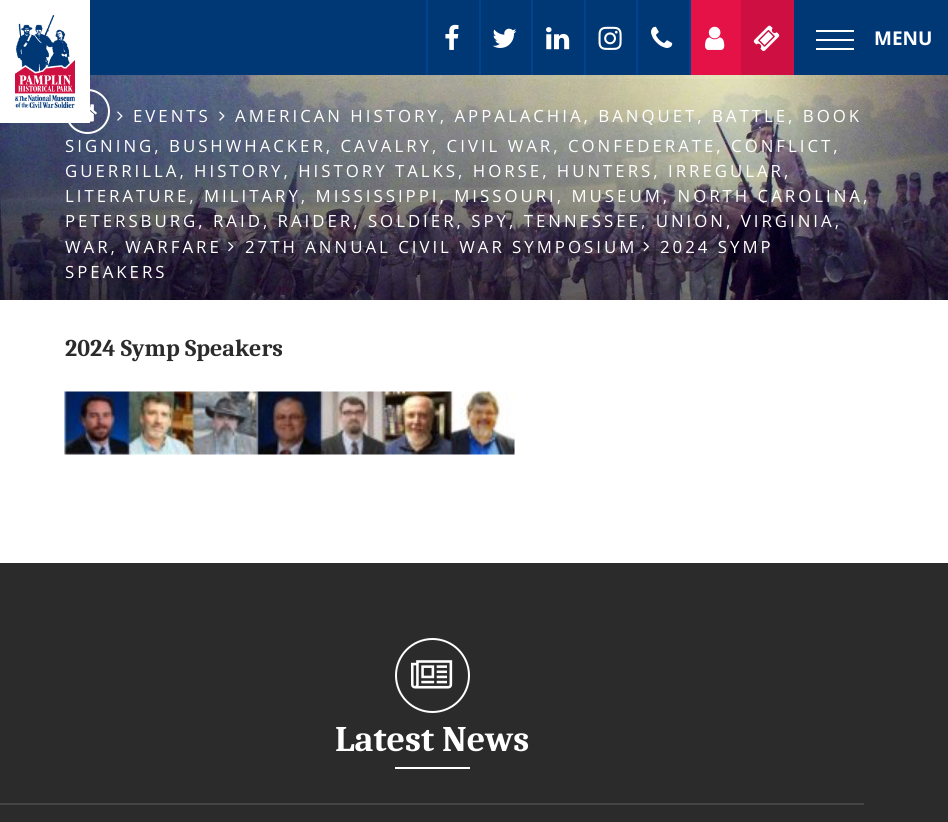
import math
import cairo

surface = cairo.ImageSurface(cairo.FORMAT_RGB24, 948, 822)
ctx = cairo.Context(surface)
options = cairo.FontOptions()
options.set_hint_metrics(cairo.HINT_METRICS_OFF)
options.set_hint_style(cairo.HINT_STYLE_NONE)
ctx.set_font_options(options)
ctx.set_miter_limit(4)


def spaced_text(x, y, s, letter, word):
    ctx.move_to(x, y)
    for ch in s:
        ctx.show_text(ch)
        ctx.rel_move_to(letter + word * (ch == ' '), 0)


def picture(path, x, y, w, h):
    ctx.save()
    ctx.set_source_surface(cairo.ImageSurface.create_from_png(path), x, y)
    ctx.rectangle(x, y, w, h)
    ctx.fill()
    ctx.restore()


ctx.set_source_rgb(1, 1, 1)
ctx.paint()
ctx.set_source_rgb(0, 0.22, 0.463)
ctx.rectangle(90, 0, 858, 75)
ctx.fill()
picture("img9.png", 0, 75, 948, 225)
gradient = cairo.LinearGradient(474, 66, 474, 300)
gradient.add_color_stop_rgba(0, 0, 0, 0, 0)
gradient.add_color_stop_rgba(1, 0, 0, 0, 0.4)
ctx.set_source(gradient)
ctx.rectangle(0, 79, 948, 221)
ctx.fill()
ctx.arc(87.5, 111.5, 21.5, 0, 2 * math.pi)
ctx.set_source_rgb(1, 1, 1)
ctx.stroke()
ctx.rectangle(0, 75, 90, 48)
ctx.fill()
picture("img1.png", 15, 15, 60, 93)
ctx.set_source_rgb(0, 0.267, 0.565)
ctx.rectangle(426, 0, 2, 75)
ctx.fill()
picture("img2.png", 445, 24, 14, 26)
ctx.rectangle(479, 0, 2, 75)
ctx.fill()
picture("img3.png", 492, 28, 25, 20)
ctx.rectangle(531, 0, 2, 75)
ctx.fill()
picture("img4.png", 546, 27, 24, 23)
ctx.rectangle(584, 0, 2, 75)
ctx.fill()
picture("img5.png", 598, 26, 24, 24)
ctx.rectangle(636, 0, 2, 75)
ctx.fill()
picture("img6.png", 651, 26, 22, 22)
ctx.set_source_rgb(0.898, 0.071, 0.282)
ctx.rectangle(691, 0, 50, 75)
ctx.fill()
ctx.set_source_rgb(0, 0.267, 0.565)
ctx.rectangle(689, 0, 2, 75)
ctx.fill()
picture("img7.png", 705, 26, 20, 24)
ctx.set_source_rgb(0.804, 0.063, 0.255)
ctx.rectangle(741, 0, 53, 75)
ctx.fill()
picture("img8.png", 753, 25, 27, 26)
ctx.set_source_rgb(1, 1, 1)
ctx.rectangle(816, 30, 38, 2)
ctx.fill()
ctx.rectangle(816, 39, 38, 2)
ctx.fill()
ctx.rectangle(816, 48, 38, 2)
ctx.fill()
ctx.select_font_face("Open Sans", cairo.FONT_SLANT_NORMAL, cairo.FONT_WEIGHT_BOLD)
ctx.set_font_size(19)
ctx.move_to(874, 45)
ctx.show_text("MENU")
picture("img10.png", 90, 104, 7, 18)
picture("img11.png", 117, 111, 6, 10)
ctx.select_font_face("Open Sans")
ctx.set_font_size(16.8)
spaced_text(133, 122, "EVENTS", 3, 0)
picture("img12.png", 219, 111, 6, 10)
spaced_text(235, 122, "AMERICAN HISTORY, APPALACHIA, BANQUET, BATTLE, BOOK", 3, 0)
spaced_text(65, 152, "SIGNING, BUSHWHACKER, CAVALRY, CIVIL WAR, CONFEDERATE, CONFLICT,", 3, 0)
spaced_text(65, 177, "GUERRILLA, HISTORY, HISTORY TALKS, HORSE, HUNTERS, IRREGULAR,", 3, 0)
spaced_text(65, 202, "LITERATURE, MILITARY, MISSISSIPPI, MISSOURI, MUSEUM, NORTH CAROLINA,", 3, 0)
spaced_text(65, 227, "PETERSBURG, RAID, RAIDER, SOLDIER, SPY, TENNESSEE, UNION, VIRGINIA,", 3, 0)
spaced_text(65, 253, "WAR, WARFARE", 3, 0)
picture("img13.png", 228, 242, 6, 10)
spaced_text(245, 253, "27TH ANNUAL CIVIL WAR SYMPOSIUM", 3, 0)
picture("img14.png", 643, 242, 6, 10)
spaced_text(660, 253, "2024 SYMP", 3, 0)
spaced_text(65, 278, "SPEAKERS", 3, 0)
ctx.select_font_face("Caladea", cairo.FONT_SLANT_NORMAL, cairo.FONT_WEIGHT_BOLD)
ctx.set_font_size(24)
ctx.set_source_rgb(0.169, 0.169, 0.169)
ctx.move_to(65, 356)
ctx.show_text("2024 Symp Speakers")
picture("img15.png", 64, 391, 451, 64)
ctx.rectangle(0, 563, 948, 259)
ctx.fill()
ctx.set_source_rgb(0.271, 0.271, 0.271)
ctx.rectangle(0, 803, 864, 2)
ctx.fill()
ctx.arc(432.5, 675.5, 36.5, 0, 2 * math.pi)
ctx.set_source_rgb(1, 1, 1)
ctx.stroke()
picture("img16.png", 411, 660, 42, 29)
ctx.set_font_size(36)
ctx.move_to(335, 751)
ctx.show_text("Latest News")
ctx.rectangle(395, 767, 75, 2)
ctx.fill()
surface.write_to_png("page.png")
